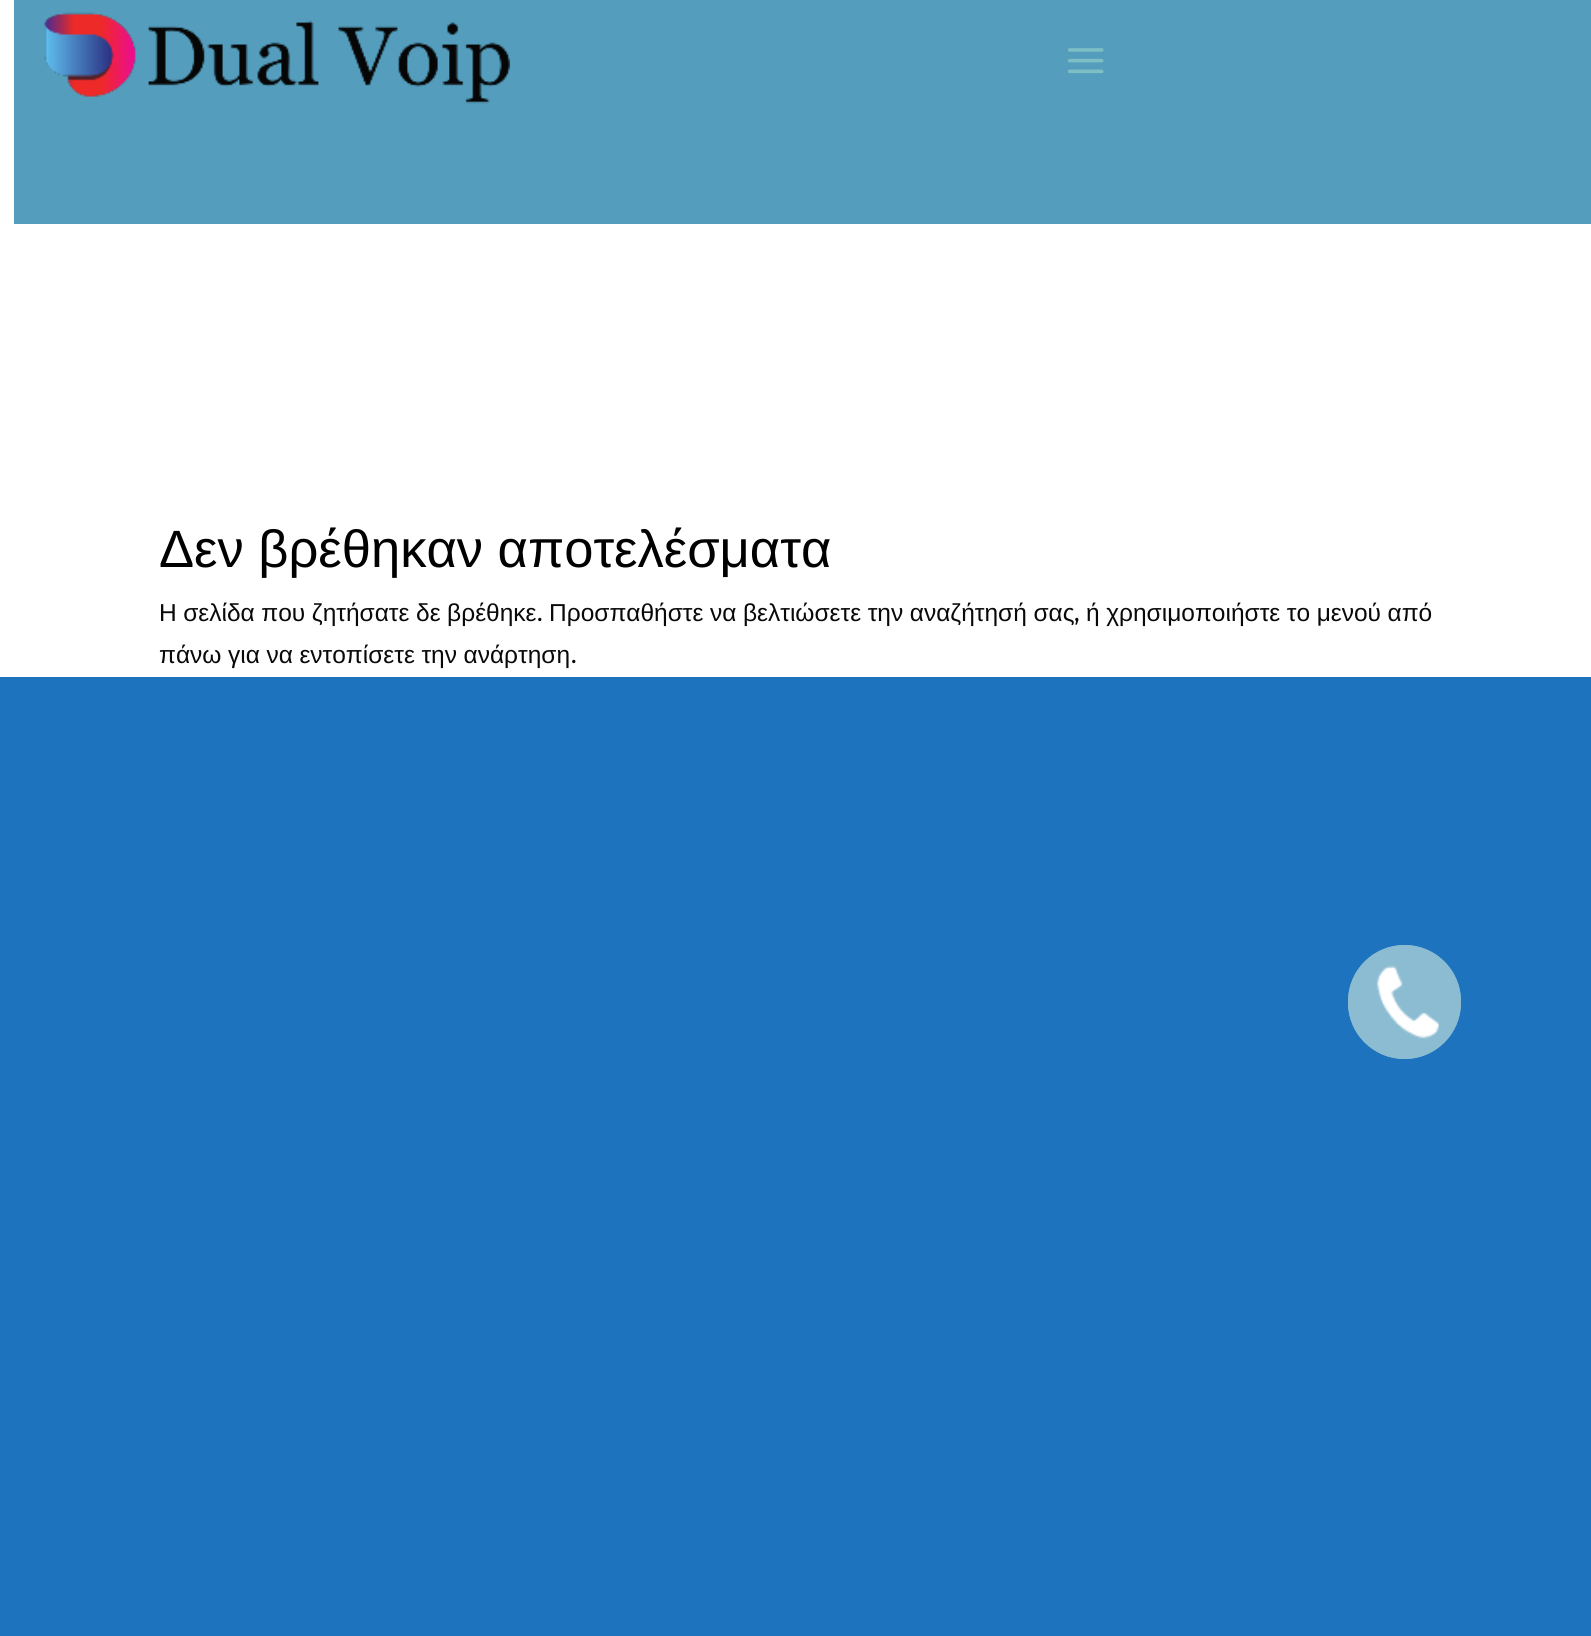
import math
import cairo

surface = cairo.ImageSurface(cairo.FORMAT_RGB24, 1591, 1636)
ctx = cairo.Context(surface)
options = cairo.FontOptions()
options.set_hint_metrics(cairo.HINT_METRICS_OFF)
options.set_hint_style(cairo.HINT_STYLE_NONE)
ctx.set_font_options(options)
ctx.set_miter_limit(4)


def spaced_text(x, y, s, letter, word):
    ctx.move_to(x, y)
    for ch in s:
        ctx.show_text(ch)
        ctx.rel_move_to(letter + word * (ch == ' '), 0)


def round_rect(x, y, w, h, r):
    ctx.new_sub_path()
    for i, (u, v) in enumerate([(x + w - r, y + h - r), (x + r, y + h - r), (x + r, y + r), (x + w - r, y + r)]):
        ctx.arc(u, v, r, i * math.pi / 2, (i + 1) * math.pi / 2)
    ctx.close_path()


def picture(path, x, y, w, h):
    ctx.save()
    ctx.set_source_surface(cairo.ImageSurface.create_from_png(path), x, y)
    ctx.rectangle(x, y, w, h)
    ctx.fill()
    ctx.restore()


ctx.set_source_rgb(0.118, 0.451, 0.745)
ctx.paint()
ctx.set_source_rgb(1, 1, 1)
ctx.rectangle(0, 0, 1591, 677)
ctx.fill()
ctx.set_source_rgb(0.329, 0.616, 0.737)
ctx.rectangle(14, 0, 1577, 224)
ctx.fill()
picture("img1.png", 44, 12, 467, 92)
picture("img2.png", 1067, 48, 37, 26)
ctx.select_font_face("Liberation Sans")
ctx.set_font_size(52.5)
ctx.set_source_rgb(0, 0, 0)
ctx.move_to(159, 567)
ctx.show_text("Δεν βρέθηκαν αποτελέσματα")
ctx.set_font_size(24.5)
ctx.set_source_rgb(0.039, 0.039, 0.039)
spaced_text(159, 621, "Η σελίδα που ζητήσατε δε βρέθηκε", 0, -0.25)
ctx.select_font_face("Montserrat Medium")
ctx.move_to(537, 621)
ctx.show_text(".")
ctx.select_font_face("Liberation Sans")
spaced_text(549, 621, "Προσπαθήστε να βελτιώσετε την αναζήτησή σας", 0, -0.25)
ctx.select_font_face("Montserrat Medium")
ctx.move_to(1074, 621)
ctx.show_text(",")
ctx.select_font_face("Liberation Sans")
spaced_text(1086, 621, "ή χρησιμοποιήστε το μενού από", 0, -0.25)
spaced_text(159, 663, "πάνω για να εντοπίσετε την ανάρτηση", 0, -0.25)
ctx.select_font_face("Montserrat Medium")
ctx.move_to(571, 663)
ctx.show_text(".")
round_rect(1349, 946, 111, 112, 55.5)
ctx.set_source_rgb(0.549, 0.737, 0.824)
ctx.stroke()
round_rect(1348, 945, 113, 114, 56.5)
ctx.fill()
picture("img3.png", 1376, 965, 63, 74)
surface.write_to_png("page.png")
